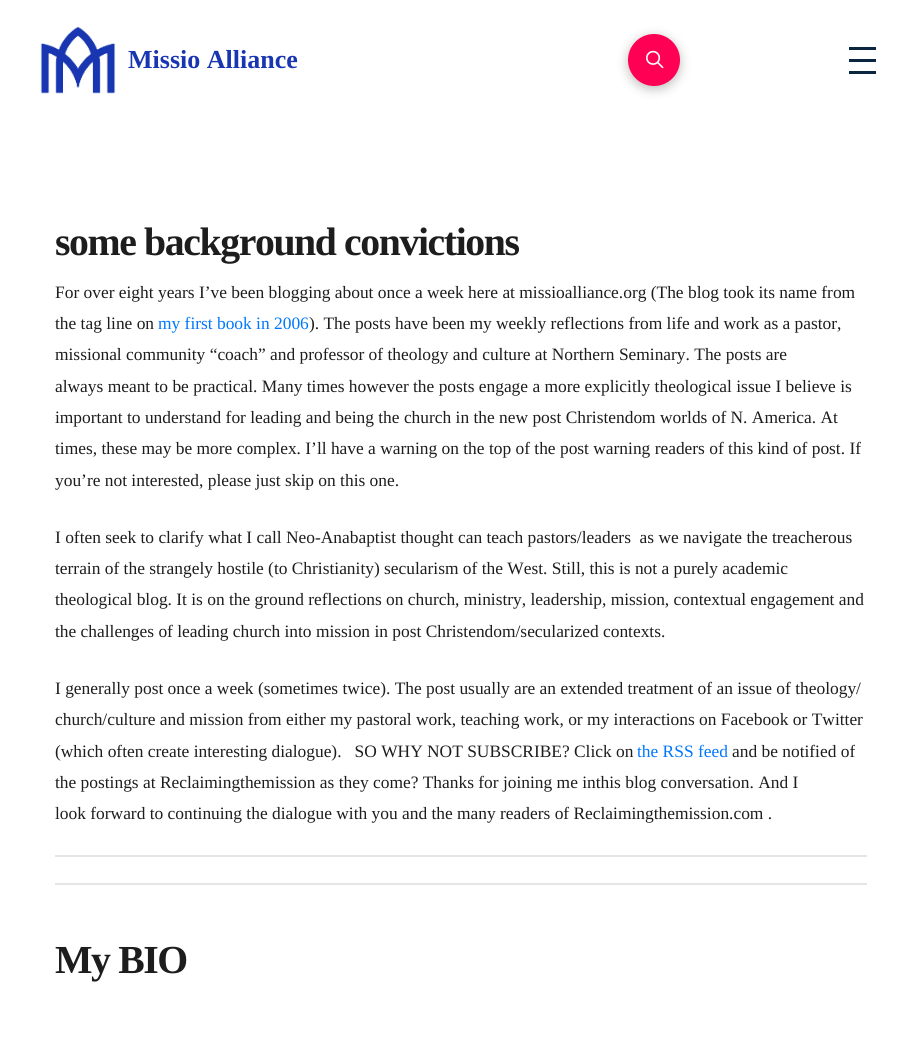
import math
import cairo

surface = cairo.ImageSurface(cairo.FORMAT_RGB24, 922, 1038)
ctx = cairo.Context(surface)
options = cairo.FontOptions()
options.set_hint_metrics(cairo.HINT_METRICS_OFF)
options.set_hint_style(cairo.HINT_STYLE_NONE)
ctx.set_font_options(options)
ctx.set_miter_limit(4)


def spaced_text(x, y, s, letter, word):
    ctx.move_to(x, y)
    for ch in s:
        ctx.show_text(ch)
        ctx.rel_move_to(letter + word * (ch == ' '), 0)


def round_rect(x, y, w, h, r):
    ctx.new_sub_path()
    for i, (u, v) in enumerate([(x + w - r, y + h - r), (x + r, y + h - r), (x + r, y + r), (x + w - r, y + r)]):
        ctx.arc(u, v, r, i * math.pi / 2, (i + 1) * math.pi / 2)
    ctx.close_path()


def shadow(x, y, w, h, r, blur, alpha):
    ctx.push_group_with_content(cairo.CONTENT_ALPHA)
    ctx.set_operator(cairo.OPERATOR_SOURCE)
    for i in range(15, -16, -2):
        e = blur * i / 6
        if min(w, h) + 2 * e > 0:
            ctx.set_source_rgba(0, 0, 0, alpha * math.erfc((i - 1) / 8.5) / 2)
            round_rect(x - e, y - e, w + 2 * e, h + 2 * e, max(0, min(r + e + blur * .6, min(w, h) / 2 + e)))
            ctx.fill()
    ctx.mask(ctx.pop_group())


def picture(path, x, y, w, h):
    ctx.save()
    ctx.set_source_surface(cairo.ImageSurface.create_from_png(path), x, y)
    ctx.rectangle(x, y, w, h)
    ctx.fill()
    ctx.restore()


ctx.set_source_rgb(1, 1, 1)
ctx.paint()
picture("img1.png", 40, 26, 76, 68)
ctx.select_font_face("Liberation Serif", cairo.FONT_SLANT_NORMAL, cairo.FONT_WEIGHT_BOLD)
ctx.set_font_size(26)
ctx.set_source_rgb(0.098, 0.212, 0.698)
ctx.move_to(128, 68)
ctx.show_text("Missio Alliance")
ctx.set_source_rgb(0, 0, 0)
shadow(628, 37, 52, 52, 26, 5.5, 0.25)
ctx.set_source_rgb(1, 0, 0.329)
ctx.arc(654, 60, 26, 0, 2 * math.pi)
ctx.fill()
picture("img2.png", 646, 50, 18, 19)
ctx.set_source_rgb(0.039, 0.145, 0.251)
ctx.rectangle(849, 47, 27, 3)
ctx.fill()
ctx.rectangle(849, 59, 27, 3)
ctx.fill()
ctx.rectangle(849, 71, 27, 3)
ctx.fill()
ctx.set_font_size(39.75)
ctx.set_source_rgb(0.114, 0.114, 0.114)
spaced_text(55, 255, "some background convictions", -1.4, 0)
ctx.select_font_face("Liberation Serif")
ctx.set_font_size(17.4)
ctx.move_to(55, 298)
ctx.show_text("For over eight years I’ve been blogging about once a week here at missioalliance.org (The blog took its name from")
ctx.move_to(55, 329)
ctx.show_text("the tag line on")
ctx.set_source_rgb(0, 0.467, 1)
ctx.move_to(158, 329)
ctx.show_text("my first book in 2006")
ctx.set_source_rgb(0.114, 0.114, 0.114)
ctx.move_to(309, 329)
ctx.show_text("). The posts have been my weekly reflections from life and work as a pastor,")
ctx.move_to(55, 360)
ctx.show_text("missional community “coach” and professor of theology and culture at Northern Seminary. The posts are")
ctx.move_to(55, 392)
ctx.show_text("always meant to be practical. Many times however the posts engage a more explicitly theological issue I believe is")
ctx.move_to(55, 423)
ctx.show_text("important to understand for leading and being the church in the new post Christendom worlds of N. America. At")
ctx.move_to(55, 454)
ctx.show_text("times, these may be more complex. I’ll have a warning on the top of the post warning readers of this kind of post. If")
ctx.move_to(55, 486)
ctx.show_text("you’re not interested, please just skip on this one.")
ctx.move_to(55, 543)
ctx.show_text("I often seek to clarify what I call Neo-Anabaptist thought can teach pastors/leaders  as we navigate the treacherous")
ctx.move_to(55, 574)
ctx.show_text("terrain of the strangely hostile (to Christianity) secularism of the West. Still, this is not a purely academic")
ctx.move_to(55, 605)
ctx.show_text("theological blog. It is on the ground reflections on church, ministry, leadership, mission, contextual engagement and")
ctx.move_to(55, 637)
ctx.show_text("the challenges of leading church into mission in post Christendom/secularized contexts.")
ctx.move_to(55, 694)
ctx.show_text("I generally post once a week (sometimes twice). The post usually are an extended treatment of an issue of theology/")
ctx.move_to(55, 725)
ctx.show_text("church/culture and mission from either my pastoral work, teaching work, or my interactions on Facebook or Twitter")
ctx.move_to(55, 757)
ctx.show_text("(which often create interesting dialogue).   SO WHY NOT SUBSCRIBE? Click on")
ctx.set_source_rgb(0, 0.467, 1)
ctx.move_to(637, 757)
ctx.show_text("the RSS feed")
ctx.set_source_rgb(0.114, 0.114, 0.114)
ctx.move_to(732, 757)
ctx.show_text("and be notified of")
ctx.move_to(55, 788)
ctx.show_text("the postings at Reclaimingthemission as they come? Thanks for joining me inthis blog conversation. And I")
ctx.move_to(55, 819)
ctx.show_text("look forward to continuing the dialogue with you and the many readers of Reclaimingthemission.com .")
ctx.set_source_rgb(0.898, 0.898, 0.898)
ctx.rectangle(55, 855, 812, 2)
ctx.fill()
ctx.rectangle(55, 883, 812, 2)
ctx.fill()
ctx.select_font_face("Liberation Serif", cairo.FONT_SLANT_NORMAL, cairo.FONT_WEIGHT_BOLD)
ctx.set_font_size(39.75)
ctx.set_source_rgb(0.114, 0.114, 0.114)
spaced_text(55, 973, "My BIO", -1.4, 0)
surface.write_to_png("page.png")
